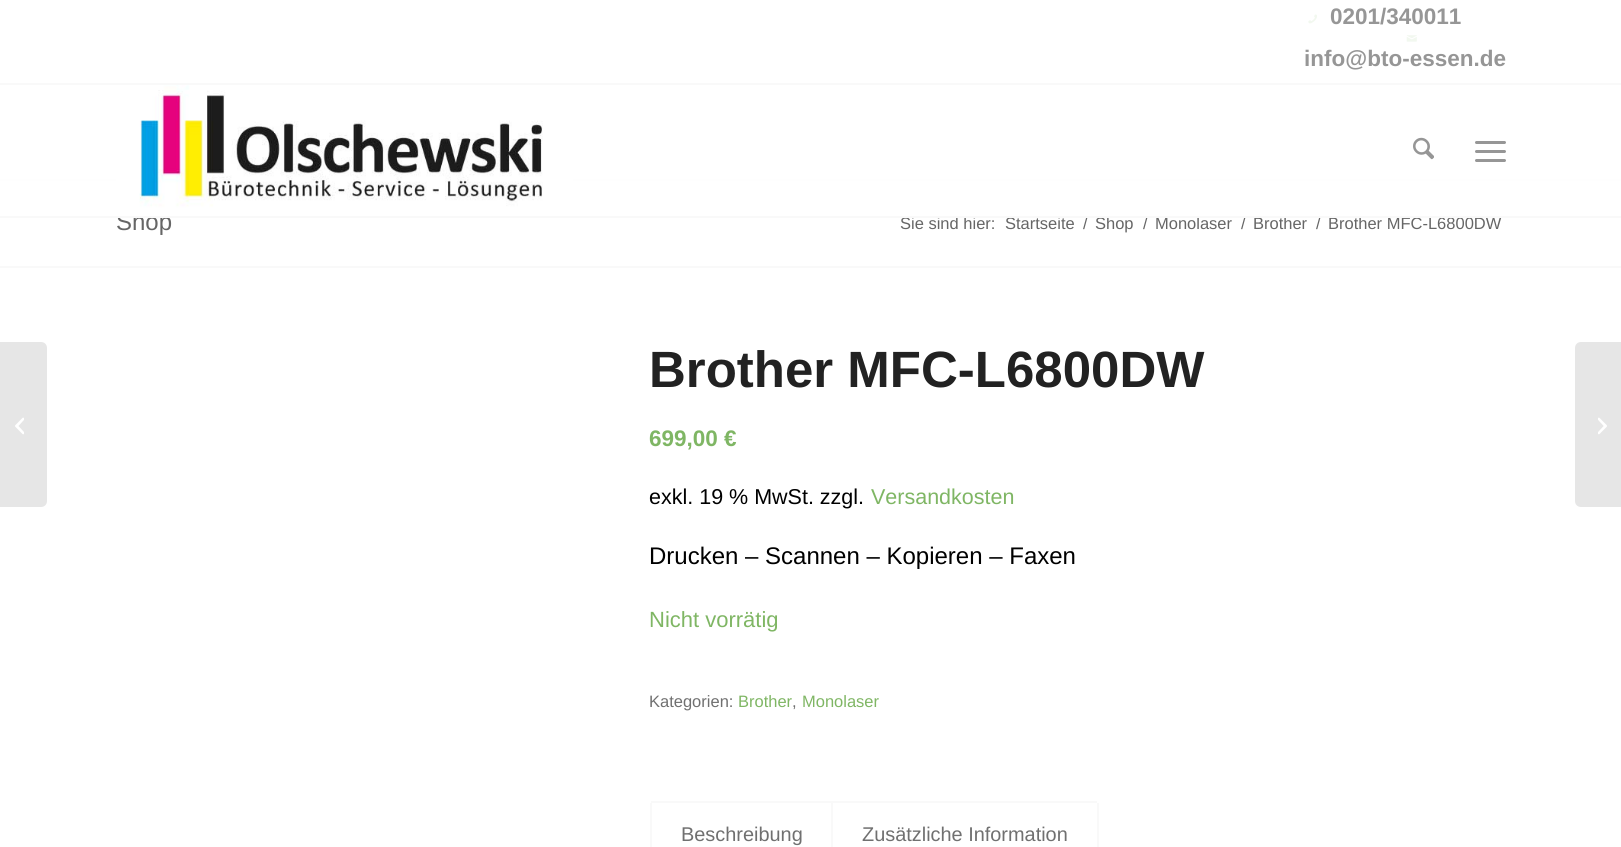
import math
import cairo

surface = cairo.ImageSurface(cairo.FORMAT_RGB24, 1621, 847)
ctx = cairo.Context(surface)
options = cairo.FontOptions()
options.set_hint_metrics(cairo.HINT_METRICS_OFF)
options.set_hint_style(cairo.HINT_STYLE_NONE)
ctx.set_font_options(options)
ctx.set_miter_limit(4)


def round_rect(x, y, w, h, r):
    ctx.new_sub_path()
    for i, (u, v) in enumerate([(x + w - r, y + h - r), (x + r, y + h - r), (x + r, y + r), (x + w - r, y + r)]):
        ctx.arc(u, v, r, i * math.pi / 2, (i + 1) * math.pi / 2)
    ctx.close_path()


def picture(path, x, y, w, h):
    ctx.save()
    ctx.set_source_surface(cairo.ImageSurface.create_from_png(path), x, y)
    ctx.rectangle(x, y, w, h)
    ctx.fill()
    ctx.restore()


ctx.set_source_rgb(1, 1, 1)
ctx.paint()
ctx.set_source_rgb(0.973, 0.973, 0.973)
ctx.rectangle(0, 83, 1621, 2)
ctx.fill()
picture("img1.png", 1308, 14, 9, 10)
ctx.select_font_face("Liberation Sans", cairo.FONT_SLANT_NORMAL, cairo.FONT_WEIGHT_BOLD)
ctx.set_font_size(22.5)
ctx.set_source_rgb(0.588, 0.588, 0.588)
ctx.move_to(1330, 24)
ctx.show_text("0201/340011")
picture("img2.png", 1406, 35, 11, 7)
ctx.move_to(1304, 66)
ctx.show_text("info@bto-essen.de")
ctx.select_font_face("Liberation Sans")
ctx.set_font_size(24)
ctx.set_source_rgb(0.4, 0.4, 0.4)
ctx.move_to(116, 230)
ctx.show_text("Shop")
ctx.set_font_size(16.5)
ctx.move_to(900, 229)
ctx.show_text("Sie sind hier:")
ctx.move_to(1005, 229)
ctx.show_text("Startseite")
ctx.move_to(1083, 229)
ctx.show_text("/")
ctx.move_to(1095, 229)
ctx.show_text("Shop")
ctx.move_to(1143, 229)
ctx.show_text("/")
ctx.move_to(1155, 229)
ctx.show_text("Monolaser")
ctx.move_to(1241, 229)
ctx.show_text("/")
ctx.move_to(1253, 229)
ctx.show_text("Brother")
ctx.move_to(1316, 229)
ctx.show_text("/")
ctx.move_to(1328, 229)
ctx.show_text("Brother MFC-L6800DW")
ctx.set_source_rgb(0.973, 0.973, 0.973)
ctx.rectangle(0, 216, 1621, 2)
ctx.fill()
ctx.set_source_rgb(0.922, 0.922, 0.922)
ctx.rectangle(0, 179, 1621, 2)
ctx.fill()
ctx.set_source_rgba(1, 1, 1, 0.95)
ctx.rectangle(0, 179, 1621, 37)
ctx.fill()
picture("img3.png", 116, 85, 457, 131)
picture("img4.png", 1413, 137, 21, 23)
ctx.set_source_rgb(0.588, 0.588, 0.588)
round_rect(1475, 150, 31, 3, 1.5)
ctx.fill()
round_rect(1475, 141, 31, 3, 1.5)
ctx.fill()
round_rect(1475, 159, 31, 3, 1.5)
ctx.fill()
ctx.set_source_rgb(0.902, 0.902, 0.902)
ctx.new_path()
ctx.move_to(0, 342)
ctx.line_to(41, 342)
ctx.curve_to(44.5, 342, 47, 344.5, 47, 348)
ctx.line_to(47, 501)
ctx.curve_to(47, 504.5, 44.5, 507, 41, 507)
ctx.line_to(0, 507)
ctx.close_path()
ctx.fill()
picture("img5.png", 15, 417, 9, 18)
ctx.set_source_rgb(0.973, 0.973, 0.973)
ctx.rectangle(0, 266, 1621, 2)
ctx.fill()
ctx.select_font_face("Liberation Sans", cairo.FONT_SLANT_NORMAL, cairo.FONT_WEIGHT_BOLD)
ctx.set_font_size(51)
ctx.set_source_rgb(0.133, 0.133, 0.133)
ctx.move_to(649, 387)
ctx.show_text("Brother MFC-L6800DW")
ctx.set_font_size(22.5)
ctx.set_source_rgb(0.498, 0.714, 0.392)
ctx.move_to(649, 446)
ctx.show_text("699,00 €")
ctx.select_font_face("Liberation Sans")
ctx.set_font_size(21.5)
ctx.set_source_rgb(0, 0, 0)
ctx.move_to(649, 504)
ctx.show_text("exkl. 19 % MwSt. zzgl.")
ctx.set_source_rgb(0.498, 0.714, 0.392)
ctx.move_to(871, 504)
ctx.show_text("Versandkosten")
ctx.set_font_size(24)
ctx.set_source_rgb(0, 0, 0)
ctx.move_to(649, 564)
ctx.show_text("Drucken – Scannen – Kopieren – Faxen")
ctx.set_font_size(22)
ctx.set_source_rgb(0.498, 0.714, 0.392)
ctx.move_to(649, 627)
ctx.show_text("Nicht vorrätig")
ctx.set_font_size(16.5)
ctx.set_source_rgb(0.439, 0.439, 0.439)
ctx.move_to(649, 707)
ctx.show_text("Kategorien:")
ctx.set_source_rgb(0.498, 0.714, 0.392)
ctx.move_to(738, 707)
ctx.show_text("Brother")
ctx.set_source_rgb(0.439, 0.439, 0.439)
ctx.move_to(792, 707)
ctx.show_text(",")
ctx.set_source_rgb(0.498, 0.714, 0.392)
ctx.move_to(802, 707)
ctx.show_text("Monolaser")
ctx.set_source_rgb(0.973, 0.973, 0.973)
ctx.rectangle(651, 801, 182, 2)
ctx.fill()
ctx.rectangle(831, 801, 2, 46)
ctx.fill()
ctx.rectangle(650, 803, 2, 44)
ctx.fill()
ctx.set_font_size(19.9)
ctx.set_source_rgb(0.439, 0.439, 0.439)
ctx.move_to(681, 841)
ctx.show_text("Beschreibung")
ctx.set_source_rgb(0.973, 0.973, 0.973)
ctx.rectangle(831, 801, 266, 2)
ctx.fill()
ctx.rectangle(1097, 803, 2, 44)
ctx.fill()
ctx.set_source_rgb(0.439, 0.439, 0.439)
ctx.move_to(862, 841)
ctx.show_text("Zusätzliche Information")
ctx.set_source_rgb(0.902, 0.902, 0.902)
ctx.new_path()
ctx.move_to(1581, 342)
ctx.line_to(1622, 342)
ctx.line_to(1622, 507)
ctx.line_to(1581, 507)
ctx.curve_to(1577.5, 507, 1575, 504.5, 1575, 501)
ctx.line_to(1575, 348)
ctx.curve_to(1575, 344.5, 1577.5, 342, 1581, 342)
ctx.close_path()
ctx.fill()
picture("img6.png", 1598, 417, 9, 18)
surface.write_to_png("page.png")
